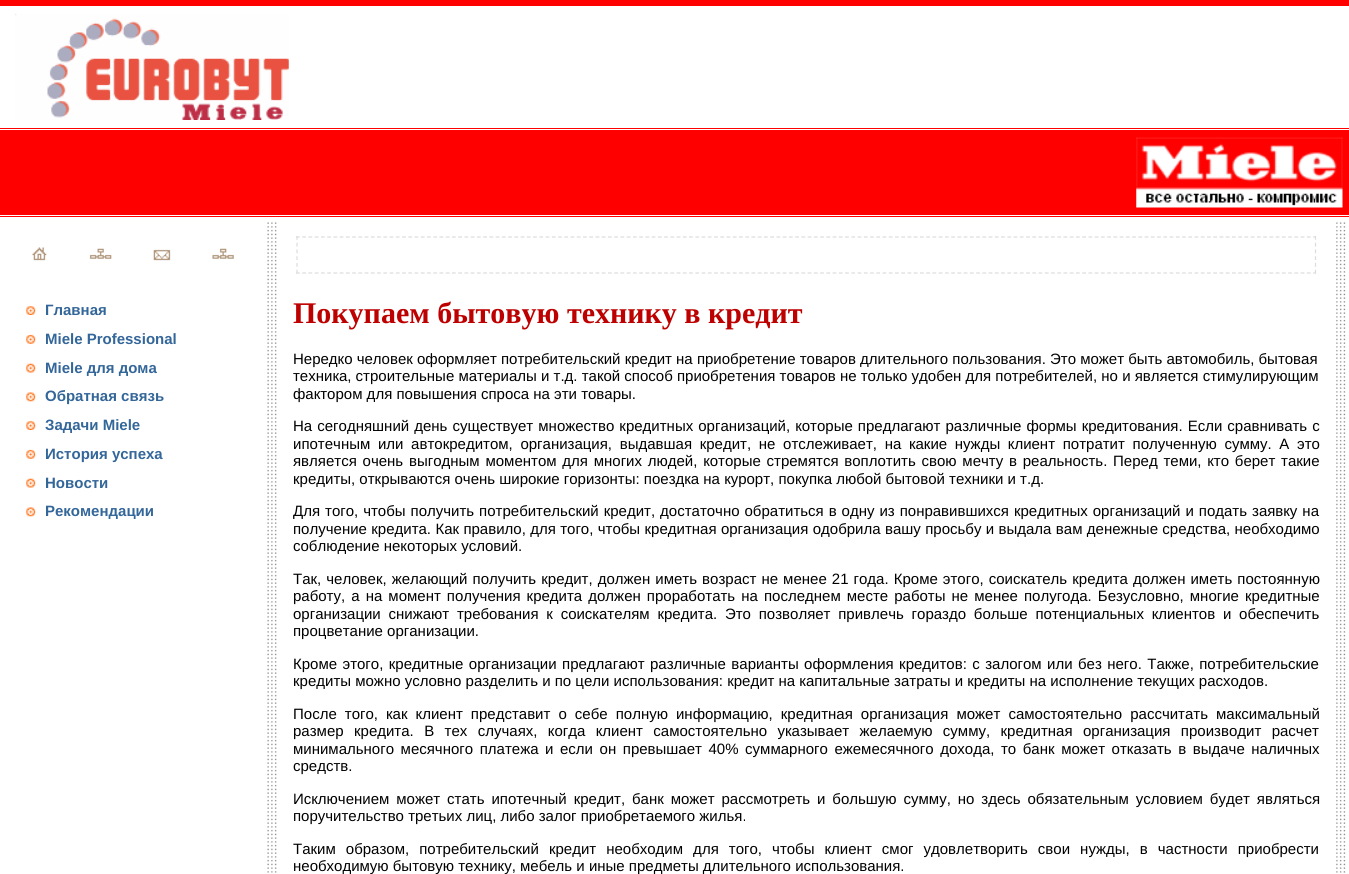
import math
import cairo

surface = cairo.ImageSurface(cairo.FORMAT_RGB24, 1349, 874)
ctx = cairo.Context(surface)
options = cairo.FontOptions()
options.set_hint_metrics(cairo.HINT_METRICS_OFF)
options.set_hint_style(cairo.HINT_STYLE_NONE)
ctx.set_font_options(options)
ctx.set_miter_limit(4)


def spaced_text(x, y, s, letter, word):
    ctx.move_to(x, y)
    for ch in s:
        ctx.show_text(ch)
        ctx.rel_move_to(letter + word * (ch == ' '), 0)


def picture(path, x, y, w, h):
    ctx.save()
    ctx.set_source_surface(cairo.ImageSurface.create_from_png(path), x, y)
    ctx.rectangle(x, y, w, h)
    ctx.fill()
    ctx.restore()


ctx.set_source_rgb(1, 1, 1)
ctx.paint()
ctx.set_source_rgb(1, 0, 0)
ctx.rectangle(0, 0, 1349, 6)
ctx.fill()
picture("img1.png", 15, 13, 274, 107)
ctx.rectangle(0, 128, 1349, 1)
ctx.fill()
ctx.rectangle(0, 130, 1349, 85)
ctx.fill()
picture("img2.png", 1136, 137, 207, 71)
ctx.rectangle(0, 216, 1349, 1)
ctx.fill()
picture("img3.png", 32, 247, 15, 14)
picture("img4.png", 89, 248, 23, 11)
picture("img5.png", 153, 249, 18, 12)
picture("img6.png", 212, 248, 22, 11)
picture("img7.png", 26, 306, 10, 9)
ctx.select_font_face("Liberation Sans", cairo.FONT_SLANT_NORMAL, cairo.FONT_WEIGHT_BOLD)
ctx.set_font_size(15)
ctx.set_source_rgb(0.2, 0.4, 0.6)
ctx.move_to(45, 315)
ctx.show_text("Главная")
picture("img8.png", 26, 334, 10, 10)
ctx.move_to(45, 344)
ctx.show_text("Miele Professional")
picture("img9.png", 26, 363, 10, 10)
ctx.move_to(45, 373)
ctx.show_text("Miele для дома")
picture("img10.png", 26, 392, 10, 10)
ctx.move_to(45, 401)
ctx.show_text("Обратная связь")
picture("img7.png", 26, 421, 10, 9)
ctx.move_to(45, 430)
ctx.show_text("Задачи Miele")
picture("img8.png", 26, 449, 10, 10)
ctx.move_to(45, 459)
ctx.show_text("История успеха")
picture("img9.png", 26, 478, 10, 10)
ctx.move_to(45, 488)
ctx.show_text("Новости")
picture("img10.png", 26, 507, 10, 10)
ctx.move_to(45, 516)
ctx.show_text("Рекомендации")
picture("img11.png", 267, 222, 10, 651)
ctx.new_path()
ctx.move_to(296, 237)
ctx.line_to(1316, 237)
ctx.set_source_rgb(0.863, 0.863, 0.863)
ctx.set_line_width(1.2)
ctx.set_dash([3.75, 2.49])
ctx.stroke()
ctx.new_path()
ctx.move_to(1315.5, 236)
ctx.line_to(1315.5, 274)
ctx.set_dash([3.75, 3])
ctx.stroke()
ctx.new_path()
ctx.move_to(296, 273)
ctx.line_to(1316, 273)
ctx.set_dash([3.75, 2.49])
ctx.stroke()
ctx.new_path()
ctx.move_to(297, 236)
ctx.line_to(297, 274)
ctx.set_dash([3.75, 3])
ctx.stroke()
ctx.select_font_face("Liberation Serif", cairo.FONT_SLANT_NORMAL, cairo.FONT_WEIGHT_BOLD)
ctx.set_font_size(30)
ctx.set_source_rgb(0.741, 0, 0)
ctx.move_to(293, 323)
ctx.show_text("Покупаем бытовую технику в кредит")
ctx.select_font_face("Liberation Sans")
ctx.set_font_size(15)
ctx.set_source_rgb(0, 0, 0)
ctx.move_to(293, 364)
ctx.show_text("Нередко человек оформляет потребительский кредит на приобретение товаров длительного пользования. Это может быть автомобиль, бытовая")
ctx.move_to(293, 381)
ctx.show_text("техника, строительные материалы и т.д. такой способ приобретения товаров не только удобен для потребителей, но и является стимулирующим")
ctx.move_to(293, 399)
ctx.show_text("фактором для повышения спроса на эти товары.")
spaced_text(293, 431, "На сегодняшний день существует множество кредитных организаций, которые предлагают различные формы кредитования. Если сравнивать с", 0, 0.9)
spaced_text(293, 449, "ипотечным или автокредитом, организация, выдавшая кредит, не отслеживает, на какие нужды клиент потратит полученную сумму. А это", 0, 3.5)
spaced_text(293, 466, "является очень выгодным моментом для многих людей, которые стремятся воплотить свою мечту в реальность. Перед теми, кто берет такие", 0, 1.6)
ctx.move_to(293, 484)
ctx.show_text("кредиты, открываются очень широкие горизонты: поездка на курорт, покупка любой бытовой техники и т.д.")
spaced_text(293, 516, "Для того, чтобы получить потребительский кредит, достаточно обратиться в одну из понравившихся кредитных организаций и подать заявку на", 0, 0.8)
spaced_text(293, 534, "получение кредита. Как правило, для того, чтобы кредитная организация одобрила вашу просьбу и выдала вам денежные средства, необходимо", 0, 0.2)
ctx.move_to(293, 551)
ctx.show_text("соблюдение некоторых условий.")
spaced_text(293, 584, "Так, человек, желающий получить кредит, должен иметь возраст не менее 21 года. Кроме этого, соискатель кредита должен иметь постоянную", 0, 0.9)
spaced_text(293, 601, "работу, а на момент получения кредита должен проработать на последнем месте работы не менее полугода. Безусловно, многие кредитные", 0, 1.9)
spaced_text(293, 619, "организации снижают требования к соискателям кредита. Это позволяет привлечь гораздо больше потенциальных клиентов и обеспечить", 0, 3.6)
ctx.move_to(293, 636)
ctx.show_text("процветание организации.")
spaced_text(293, 669, "Кроме этого, кредитные организации предлагают различные варианты оформления кредитов: с залогом или без него. Также, потребительские", 0, 1.25)
ctx.move_to(293, 686)
ctx.show_text("кредиты можно условно разделить и по цели использования: кредит на капитальные затраты и кредиты на исполнение текущих расходов.")
spaced_text(293, 719, "После того, как клиент представит о себе полную информацию, кредитная организация может самостоятельно рассчитать максимальный", 0, 3.9)
spaced_text(293, 736, "размер кредита. В тех случаях, когда клиент самостоятельно указывает желаемую сумму, кредитная организация производит расчет", 0, 6.25)
spaced_text(293, 754, "минимального месячного платежа и если он превышает 40% суммарного ежемесячного дохода, то банк может отказать в выдаче наличных", 0, 2.4)
ctx.move_to(293, 771)
ctx.show_text("средств.")
spaced_text(293, 804, "Исключением может стать ипотечный кредит, банк может рассмотреть и большую сумму, но здесь обязательным условием будет являться", 0, 2.75)
ctx.move_to(293, 821)
ctx.show_text("поручительство третьих лиц, либо залог приобретаемого жилья.")
spaced_text(293, 854, "Таким образом, потребительский кредит необходим для того, чтобы клиент смог удовлетворить свои нужды, в частности приобрести", 0, 5.9)
ctx.move_to(293, 871)
ctx.show_text("необходимую бытовую технику, мебель и иные предметы длительного использования.")
picture("img12.png", 1336, 222, 10, 651)
surface.write_to_png("page.png")
